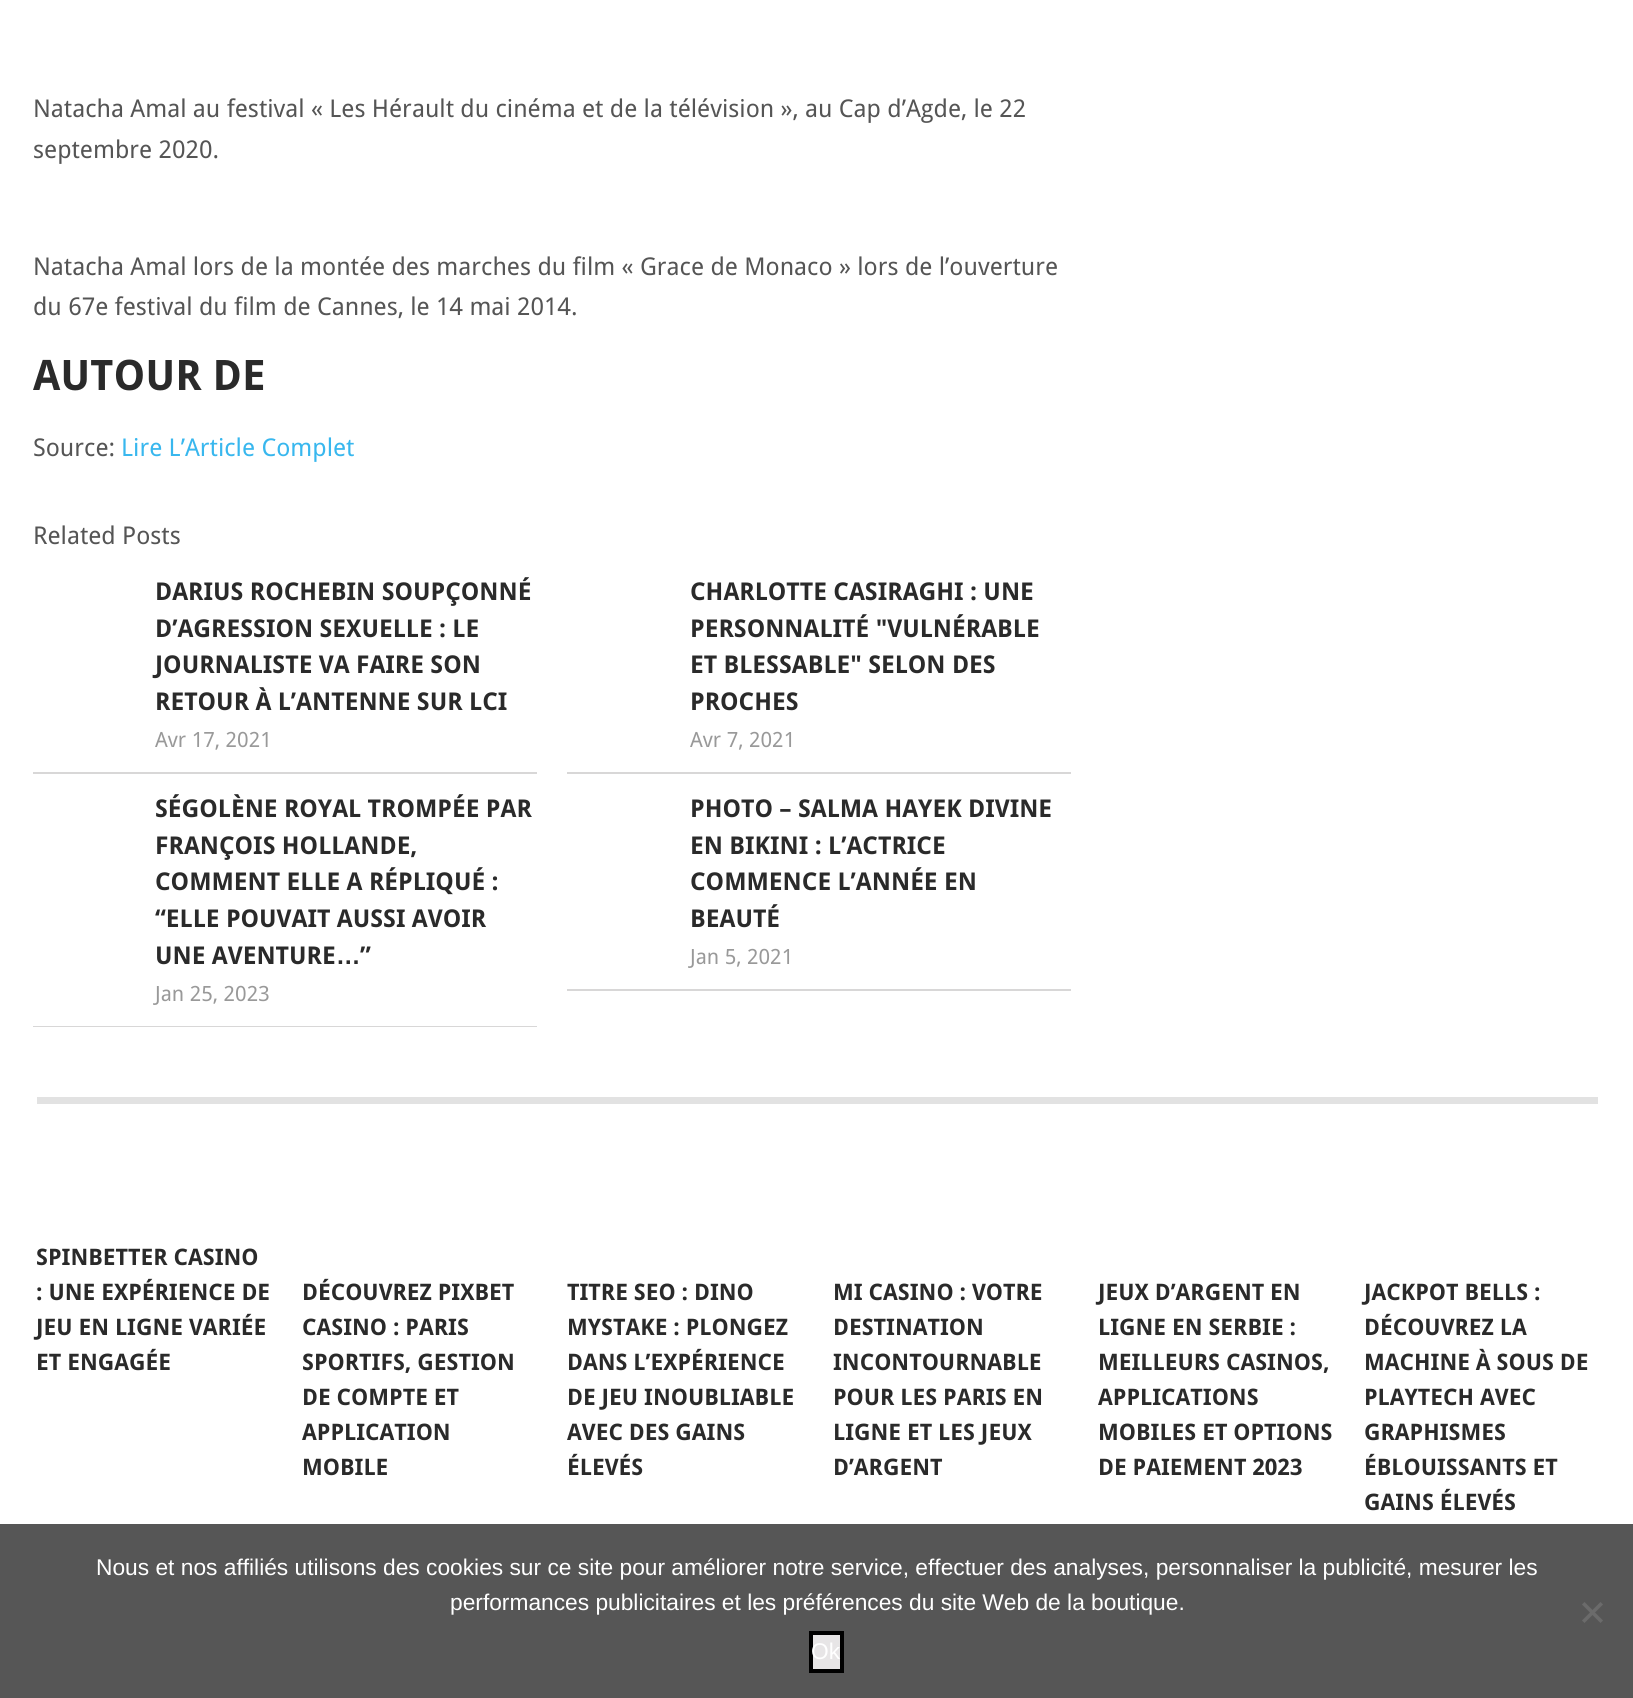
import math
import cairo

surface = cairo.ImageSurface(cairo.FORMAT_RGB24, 1633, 1698)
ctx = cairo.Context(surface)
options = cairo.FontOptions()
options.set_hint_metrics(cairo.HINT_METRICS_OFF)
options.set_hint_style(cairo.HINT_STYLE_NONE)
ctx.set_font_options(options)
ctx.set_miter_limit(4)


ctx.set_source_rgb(1, 1, 1)
ctx.paint()
ctx.select_font_face("Droid Sans")
ctx.set_font_size(24.5)
ctx.set_source_rgb(0.333, 0.333, 0.333)
ctx.move_to(33, 117)
ctx.show_text("Natacha Amal au festival « Les Hérault du cinéma et de la télévision », au Cap d’Agde, le 22")
ctx.move_to(33, 158)
ctx.show_text("septembre 2020.")
ctx.move_to(33, 275)
ctx.show_text("Natacha Amal lors de la montée des marches du film « Grace de Monaco » lors de l’ouverture")
ctx.move_to(33, 315)
ctx.show_text("du 67e festival du film de Cannes, le 14 mai 2014.")
ctx.select_font_face("Droid Sans", cairo.FONT_SLANT_NORMAL, cairo.FONT_WEIGHT_BOLD)
ctx.set_font_size(42)
ctx.set_source_rgb(0.165, 0.165, 0.165)
ctx.move_to(33, 390)
ctx.show_text("AUTOUR DE")
ctx.select_font_face("Droid Sans")
ctx.set_font_size(24.5)
ctx.set_source_rgb(0.333, 0.333, 0.333)
ctx.move_to(33, 456)
ctx.show_text("Source:")
ctx.set_source_rgb(0.22, 0.718, 0.933)
ctx.move_to(121, 456)
ctx.show_text("Lire L’Article Complet")
ctx.set_source_rgb(0.333, 0.333, 0.333)
ctx.move_to(33, 544)
ctx.show_text("Related Posts")
ctx.set_source_rgb(0.847, 0.843, 0.843)
ctx.rectangle(33, 772, 504, 2)
ctx.fill()
ctx.select_font_face("Droid Sans", cairo.FONT_SLANT_NORMAL, cairo.FONT_WEIGHT_BOLD)
ctx.set_source_rgb(0.165, 0.165, 0.165)
ctx.move_to(155, 600)
ctx.show_text("DARIUS ROCHEBIN SOUPÇONNÉ")
ctx.move_to(155, 637)
ctx.show_text("D’AGRESSION SEXUELLE : LE")
ctx.move_to(155, 673)
ctx.show_text("JOURNALISTE VA FAIRE SON")
ctx.move_to(155, 710)
ctx.show_text("RETOUR À L’ANTENNE SUR LCI")
ctx.select_font_face("Droid Sans")
ctx.set_font_size(21)
ctx.set_source_rgb(0.6, 0.6, 0.6)
ctx.move_to(155, 747)
ctx.show_text("Avr 17, 2021")
ctx.set_source_rgb(0.847, 0.843, 0.843)
ctx.rectangle(567, 772, 504, 2)
ctx.fill()
ctx.select_font_face("Droid Sans", cairo.FONT_SLANT_NORMAL, cairo.FONT_WEIGHT_BOLD)
ctx.set_font_size(24.5)
ctx.set_source_rgb(0.165, 0.165, 0.165)
ctx.move_to(690, 600)
ctx.show_text("CHARLOTTE CASIRAGHI : UNE")
ctx.move_to(690, 637)
ctx.show_text("PERSONNALITÉ \"VULNÉRABLE")
ctx.move_to(690, 673)
ctx.show_text("ET BLESSABLE\" SELON DES")
ctx.move_to(690, 710)
ctx.show_text("PROCHES")
ctx.select_font_face("Droid Sans")
ctx.set_font_size(21)
ctx.set_source_rgb(0.6, 0.6, 0.6)
ctx.move_to(690, 747)
ctx.show_text("Avr 7, 2021")
ctx.set_source_rgb(0.847, 0.843, 0.843)
ctx.rectangle(33, 1026, 504, 1)
ctx.fill()
ctx.select_font_face("Droid Sans", cairo.FONT_SLANT_NORMAL, cairo.FONT_WEIGHT_BOLD)
ctx.set_font_size(24.5)
ctx.set_source_rgb(0.165, 0.165, 0.165)
ctx.move_to(155, 817)
ctx.show_text("SÉGOLÈNE ROYAL TROMPÉE PAR")
ctx.move_to(155, 854)
ctx.show_text("FRANÇOIS HOLLANDE,")
ctx.move_to(155, 890)
ctx.show_text("COMMENT ELLE A RÉPLIQUÉ :")
ctx.move_to(155, 927)
ctx.show_text("“ELLE POUVAIT AUSSI AVOIR")
ctx.move_to(155, 964)
ctx.show_text("UNE AVENTURE")
ctx.move_to(360, 964)
ctx.show_text("”")
ctx.select_font_face("Liberation Sans", cairo.FONT_SLANT_NORMAL, cairo.FONT_WEIGHT_BOLD)
ctx.move_to(336, 964)
ctx.show_text("…")
ctx.select_font_face("Droid Sans")
ctx.set_font_size(21)
ctx.set_source_rgb(0.6, 0.6, 0.6)
ctx.move_to(155, 1001)
ctx.show_text("Jan 25, 2023")
ctx.set_source_rgb(0.847, 0.843, 0.843)
ctx.rectangle(567, 989, 504, 2)
ctx.fill()
ctx.select_font_face("Droid Sans", cairo.FONT_SLANT_NORMAL, cairo.FONT_WEIGHT_BOLD)
ctx.set_font_size(24.5)
ctx.set_source_rgb(0.165, 0.165, 0.165)
ctx.move_to(690, 817)
ctx.show_text("PHOTO – SALMA HAYEK DIVINE")
ctx.move_to(690, 854)
ctx.show_text("EN BIKINI : L’ACTRICE")
ctx.move_to(690, 890)
ctx.show_text("COMMENCE L’ANNÉE EN")
ctx.move_to(690, 927)
ctx.show_text("BEAUTÉ")
ctx.select_font_face("Droid Sans")
ctx.set_font_size(21)
ctx.set_source_rgb(0.6, 0.6, 0.6)
ctx.move_to(690, 964)
ctx.show_text("Jan 5, 2021")
ctx.set_source_rgb(0.886, 0.886, 0.886)
ctx.rectangle(37, 1097, 1561, 7)
ctx.fill()
ctx.select_font_face("Droid Sans", cairo.FONT_SLANT_NORMAL, cairo.FONT_WEIGHT_BOLD)
ctx.set_font_size(22.75)
ctx.set_source_rgb(0.165, 0.165, 0.165)
ctx.move_to(36, 1265)
ctx.show_text("SPINBETTER CASINO")
ctx.move_to(36, 1300)
ctx.show_text(": UNE EXPÉRIENCE DE")
ctx.move_to(36, 1335)
ctx.show_text("JEU EN LIGNE VARIÉE")
ctx.move_to(36, 1370)
ctx.show_text("ET ENGAGÉE")
ctx.move_to(302, 1300)
ctx.show_text("DÉCOUVREZ PIXBET")
ctx.move_to(302, 1335)
ctx.show_text("CASINO : PARIS")
ctx.move_to(302, 1370)
ctx.show_text("SPORTIFS, GESTION")
ctx.move_to(302, 1405)
ctx.show_text("DE COMPTE ET")
ctx.move_to(302, 1440)
ctx.show_text("APPLICATION")
ctx.move_to(302, 1475)
ctx.show_text("MOBILE")
ctx.move_to(567, 1300)
ctx.show_text("TITRE SEO : DINO")
ctx.move_to(567, 1335)
ctx.show_text("MYSTAKE : PLONGEZ")
ctx.move_to(567, 1370)
ctx.show_text("DANS L’EXPÉRIENCE")
ctx.move_to(567, 1405)
ctx.show_text("DE JEU INOUBLIABLE")
ctx.move_to(567, 1440)
ctx.show_text("AVEC DES GAINS")
ctx.move_to(567, 1475)
ctx.show_text("ÉLEVÉS")
ctx.move_to(833, 1300)
ctx.show_text("MI CASINO : VOTRE")
ctx.move_to(833, 1335)
ctx.show_text("DESTINATION")
ctx.move_to(833, 1370)
ctx.show_text("INCONTOURNABLE")
ctx.move_to(833, 1405)
ctx.show_text("POUR LES PARIS EN")
ctx.move_to(833, 1440)
ctx.show_text("LIGNE ET LES JEUX")
ctx.move_to(833, 1475)
ctx.show_text("D’ARGENT")
ctx.move_to(1098, 1300)
ctx.show_text("JEUX D’ARGENT EN")
ctx.move_to(1098, 1335)
ctx.show_text("LIGNE EN SERBIE :")
ctx.move_to(1098, 1370)
ctx.show_text("MEILLEURS CASINOS,")
ctx.move_to(1098, 1405)
ctx.show_text("APPLICATIONS")
ctx.move_to(1098, 1440)
ctx.show_text("MOBILES ET OPTIONS")
ctx.move_to(1098, 1475)
ctx.show_text("DE PAIEMENT 2023")
ctx.move_to(1364, 1300)
ctx.show_text("JACKPOT BELLS :")
ctx.move_to(1364, 1335)
ctx.show_text("DÉCOUVREZ LA")
ctx.move_to(1364, 1370)
ctx.show_text("MACHINE À SOUS DE")
ctx.move_to(1364, 1405)
ctx.show_text("PLAYTECH AVEC")
ctx.move_to(1364, 1440)
ctx.show_text("GRAPHISMES")
ctx.move_to(1364, 1475)
ctx.show_text("ÉBLOUISSANTS ET")
ctx.move_to(1364, 1510)
ctx.show_text("GAINS ÉLEVÉS")
ctx.set_source_rgb(0.337, 0.337, 0.337)
ctx.rectangle(0, 1524, 1633, 174)
ctx.fill()
ctx.select_font_face("Liberation Sans")
ctx.set_source_rgb(1, 1, 1)
ctx.move_to(96, 1575)
ctx.show_text("Nous et nos affiliés utilisons des cookies sur ce site pour améliorer notre service, effectuer des analyses, personnaliser la publicité, mesurer les")
ctx.move_to(450, 1610)
ctx.show_text("performances publicitaires et les préférences du site Web de la boutique.")
ctx.set_source_rgb(0.42, 0.42, 0.42)
ctx.new_path()
ctx.move_to(1600.5, 1602)
ctx.line_to(1603, 1604.5)
ctx.line_to(1584.5, 1623)
ctx.line_to(1582, 1620.5)
ctx.close_path()
ctx.fill()
ctx.new_path()
ctx.move_to(1582, 1604.5)
ctx.line_to(1584.5, 1602)
ctx.line_to(1603, 1620.5)
ctx.line_to(1600.5, 1623)
ctx.close_path()
ctx.fill()
ctx.set_source_rgb(0.906, 0.898, 0.902)
ctx.rectangle(811, 1633, 31, 38)
ctx.fill_preserve()
ctx.set_source_rgb(0, 0, 0)
ctx.set_line_width(4)
ctx.stroke()
ctx.set_source_rgb(1, 1, 1)
ctx.move_to(811, 1659)
ctx.show_text("Ok")
surface.write_to_png("page.png")
